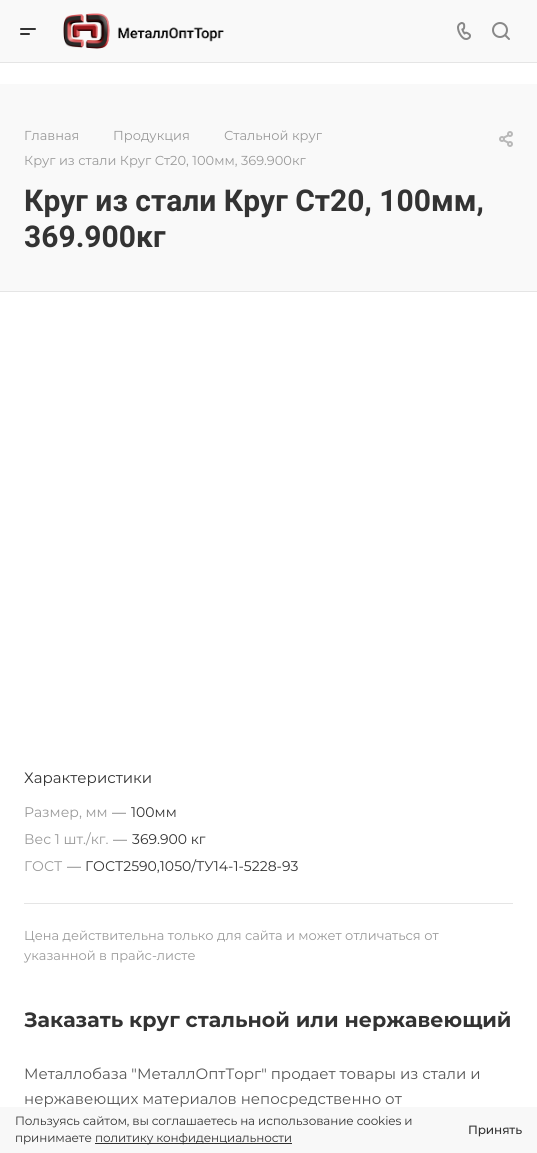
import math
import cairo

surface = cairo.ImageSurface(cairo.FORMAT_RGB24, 537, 1153)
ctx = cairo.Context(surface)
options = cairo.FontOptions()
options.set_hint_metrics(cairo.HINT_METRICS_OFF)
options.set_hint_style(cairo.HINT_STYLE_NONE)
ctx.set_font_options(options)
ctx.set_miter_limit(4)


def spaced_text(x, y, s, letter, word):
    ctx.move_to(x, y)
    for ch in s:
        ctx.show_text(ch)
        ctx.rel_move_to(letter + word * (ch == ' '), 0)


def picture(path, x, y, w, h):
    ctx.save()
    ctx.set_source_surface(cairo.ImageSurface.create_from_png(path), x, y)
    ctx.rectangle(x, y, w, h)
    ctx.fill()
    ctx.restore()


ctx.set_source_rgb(1, 1, 1)
ctx.paint()
ctx.set_source_rgb(0.898, 0.898, 0.898)
ctx.rectangle(0, 62, 537, 1)
ctx.fill()
ctx.set_source_rgb(0.973, 0.973, 0.973)
ctx.rectangle(0, 0, 537, 62)
ctx.fill()
picture("img1.png", 20, 28, 16, 7)
picture("img2.png", 63, 13, 161, 36)
picture("img3.png", 457, 22, 14, 18)
picture("img4.png", 492, 22, 18, 18)
ctx.rectangle(0, 84, 537, 207)
ctx.fill()
ctx.set_source_rgb(0.898, 0.898, 0.898)
ctx.rectangle(0, 291, 537, 1)
ctx.fill()
ctx.select_font_face("Montserrat")
ctx.set_font_size(13)
ctx.set_source_rgb(0.6, 0.6, 0.6)
ctx.move_to(24, 140)
ctx.show_text("Главная")
ctx.move_to(113, 140)
ctx.show_text("Продукция")
ctx.move_to(224, 140)
ctx.show_text("Стальной круг")
ctx.move_to(24, 165)
ctx.show_text("Круг из стали Круг Ст20, 100мм, 369.900кг")
picture("img5.png", 499, 131, 14, 16)
ctx.select_font_face("Roboto", cairo.FONT_SLANT_NORMAL, cairo.FONT_WEIGHT_BOLD)
ctx.set_font_size(30)
ctx.set_source_rgb(0.2, 0.2, 0.2)
ctx.move_to(24, 211)
ctx.show_text("Круг из стали Круг Ст20, 100мм,")
ctx.move_to(24, 247)
ctx.show_text("369.900кг")
ctx.select_font_face("Montserrat")
ctx.set_font_size(15)
ctx.move_to(24, 783)
ctx.show_text("Характеристики")
ctx.set_font_size(14)
ctx.set_source_rgb(0.6, 0.6, 0.6)
ctx.move_to(24, 817)
ctx.show_text("Размер, мм")
ctx.set_source_rgb(0.4, 0.4, 0.4)
ctx.move_to(112, 817)
ctx.show_text("—")
ctx.set_source_rgb(0.2, 0.2, 0.2)
ctx.move_to(131, 817)
ctx.show_text("100мм")
ctx.set_source_rgb(0.6, 0.6, 0.6)
ctx.move_to(24, 844)
ctx.show_text("Вес 1 шт./кг.")
ctx.set_source_rgb(0.4, 0.4, 0.4)
ctx.move_to(113, 844)
ctx.show_text("—")
ctx.set_source_rgb(0.2, 0.2, 0.2)
ctx.move_to(132, 844)
ctx.show_text("369.900 кг")
ctx.set_source_rgb(0.6, 0.6, 0.6)
ctx.move_to(24, 871)
ctx.show_text("ГОСТ")
ctx.set_source_rgb(0.4, 0.4, 0.4)
ctx.move_to(67, 871)
ctx.show_text("—")
ctx.set_source_rgb(0.2, 0.2, 0.2)
ctx.move_to(85, 871)
ctx.show_text("ГОСТ2590,1050/ТУ14-1-5228-93")
ctx.set_source_rgb(0.898, 0.898, 0.898)
ctx.rectangle(24, 903, 489, 1)
ctx.fill()
ctx.set_font_size(13)
ctx.set_source_rgb(0.6, 0.6, 0.6)
ctx.move_to(24, 940)
ctx.show_text("Цена действительна только для сайта и может отличаться от")
ctx.move_to(24, 960)
ctx.show_text("указанной в прайс-листе")
ctx.select_font_face("Montserrat", cairo.FONT_SLANT_NORMAL, cairo.FONT_WEIGHT_BOLD)
ctx.set_font_size(20.6)
ctx.set_source_rgb(0.2, 0.2, 0.2)
ctx.move_to(24, 1027)
ctx.show_text("Заказать круг стальной или нержавеющий")
ctx.select_font_face("Montserrat")
ctx.set_font_size(15)
ctx.set_source_rgb(0.333, 0.333, 0.333)
ctx.move_to(24, 1079)
ctx.show_text("Металлобаза \"МеталлОптТорг\" продает товары из стали и")
ctx.move_to(24, 1104)
ctx.show_text("нержавеющих материалов непосредственно от")
ctx.set_source_rgb(0.969, 0.969, 0.969)
ctx.rectangle(0, 1107, 537, 46)
ctx.fill()
ctx.set_font_size(12)
ctx.set_source_rgb(0.2, 0.2, 0.2)
spaced_text(15, 1125, "Пользуясь сайтом, вы соглашаетесь на использование cookies и", -0.12, 0)
spaced_text(15, 1142, "принимаете", -0.12, 0)
ctx.set_source_rgb(0.184, 0.184, 0.184)
ctx.rectangle(95, 1143, 197, 1)
ctx.fill()
ctx.set_source_rgb(0.2, 0.2, 0.2)
spaced_text(95, 1142, "политику конфиденциальности", -0.12, 0)
ctx.select_font_face("Montserrat Medium")
spaced_text(468, 1134, "Принять", -0.12, 0)
surface.write_to_png("page.png")
